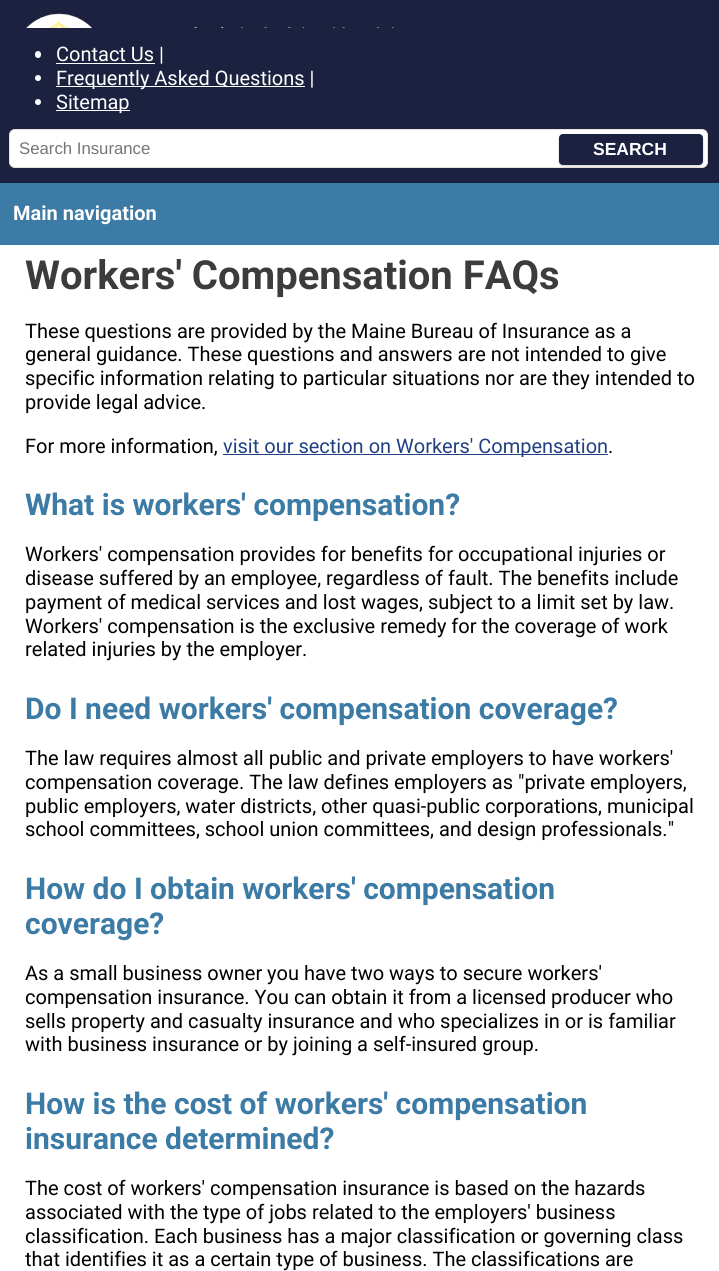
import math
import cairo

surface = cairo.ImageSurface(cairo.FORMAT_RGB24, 719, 1271)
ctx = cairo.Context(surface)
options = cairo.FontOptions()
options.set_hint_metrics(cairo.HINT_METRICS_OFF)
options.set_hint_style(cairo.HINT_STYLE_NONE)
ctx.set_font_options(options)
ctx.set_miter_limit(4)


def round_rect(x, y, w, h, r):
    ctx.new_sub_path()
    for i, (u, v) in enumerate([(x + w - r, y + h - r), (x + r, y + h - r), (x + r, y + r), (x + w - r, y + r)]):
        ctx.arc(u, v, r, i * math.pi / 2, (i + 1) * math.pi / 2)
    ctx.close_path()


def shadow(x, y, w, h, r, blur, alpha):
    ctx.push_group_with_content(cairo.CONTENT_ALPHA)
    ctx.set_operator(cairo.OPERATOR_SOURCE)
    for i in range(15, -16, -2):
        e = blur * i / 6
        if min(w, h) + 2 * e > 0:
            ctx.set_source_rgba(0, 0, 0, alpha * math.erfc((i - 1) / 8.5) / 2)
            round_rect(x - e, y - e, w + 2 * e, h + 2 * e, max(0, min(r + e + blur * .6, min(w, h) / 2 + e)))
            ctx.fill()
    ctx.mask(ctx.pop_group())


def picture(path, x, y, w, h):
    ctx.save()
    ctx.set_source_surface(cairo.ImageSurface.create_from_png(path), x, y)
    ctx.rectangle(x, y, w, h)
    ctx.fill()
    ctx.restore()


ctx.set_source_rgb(1, 1, 1)
ctx.paint()
ctx.set_source_rgb(0.11, 0.129, 0.247)
ctx.rectangle(0, 0, 719, 183)
ctx.fill()
picture("img1.png", 26, 13, 368, 15)
ctx.set_source_rgb(1, 1, 1)
round_rect(35, 51, 6, 7, 3)
ctx.fill()
ctx.rectangle(56, 63, 99, 1)
ctx.fill()
ctx.select_font_face("Roboto")
ctx.set_font_size(20)
ctx.move_to(56, 61)
ctx.show_text("Contact Us |")
ctx.new_path()
ctx.arc(38, 78, 3, 0, 2 * math.pi)
ctx.fill()
ctx.rectangle(56, 86, 249, 1)
ctx.fill()
ctx.move_to(56, 85)
ctx.show_text("Frequently Asked Questions |")
ctx.new_path()
ctx.arc(38, 102, 3, 0, 2 * math.pi)
ctx.fill()
ctx.rectangle(56, 110, 74, 1)
ctx.fill()
ctx.move_to(56, 109)
ctx.show_text("Sitemap")
round_rect(9.5, 129.5, 698, 38, 5.5)
ctx.fill_preserve()
ctx.set_source_rgb(0.91, 0.878, 0.843)
ctx.set_line_width(1)
ctx.stroke()
ctx.select_font_face("Liberation Sans")
ctx.set_font_size(16.75)
ctx.set_source_rgb(0.459, 0.459, 0.459)
ctx.move_to(19, 154)
ctx.show_text("Search Insurance")
ctx.set_source_rgb(0, 0, 0)
shadow(559, 135, 144, 31, 4, 1, 0.2)
ctx.set_source_rgb(0.11, 0.129, 0.247)
round_rect(559, 134, 144, 31, 4)
ctx.fill()
ctx.select_font_face("Liberation Sans", cairo.FONT_SLANT_NORMAL, cairo.FONT_WEIGHT_BOLD)
ctx.set_font_size(17.5)
ctx.set_source_rgb(1, 1, 1)
ctx.move_to(593, 155)
ctx.show_text("SEARCH")
ctx.set_source_rgb(0.231, 0.482, 0.647)
ctx.rectangle(0, 183, 719, 62)
ctx.fill()
ctx.select_font_face("Roboto", cairo.FONT_SLANT_NORMAL, cairo.FONT_WEIGHT_BOLD)
ctx.set_font_size(20)
ctx.set_source_rgb(1, 1, 1)
ctx.move_to(13, 220)
ctx.show_text("Main navigation")
ctx.set_font_size(40)
ctx.set_source_rgb(0.235, 0.235, 0.235)
ctx.move_to(25, 289)
ctx.show_text("Workers' Compensation FAQs")
ctx.select_font_face("Roboto")
ctx.set_font_size(20)
ctx.set_source_rgb(0, 0, 0)
ctx.move_to(25, 338)
ctx.show_text("These questions are provided by the Maine Bureau of Insurance as a")
ctx.move_to(25, 361)
ctx.show_text("general guidance. These questions and answers are not intended to give")
ctx.move_to(25, 385)
ctx.show_text("specific information relating to particular situations nor are they intended to")
ctx.move_to(25, 409)
ctx.show_text("provide legal advice.")
ctx.move_to(25, 453)
ctx.show_text("For more information,")
ctx.set_source_rgb(0.129, 0.255, 0.514)
ctx.rectangle(223, 454, 385, 1)
ctx.fill()
ctx.move_to(223, 453)
ctx.show_text("visit our section on Workers' Compensation")
ctx.set_source_rgb(0, 0, 0)
ctx.move_to(608, 453)
ctx.show_text(".")
ctx.select_font_face("Roboto", cairo.FONT_SLANT_NORMAL, cairo.FONT_WEIGHT_BOLD)
ctx.set_font_size(30)
ctx.set_source_rgb(0.231, 0.482, 0.647)
ctx.move_to(25, 515)
ctx.show_text("What is workers' compensation?")
ctx.select_font_face("Roboto")
ctx.set_font_size(20)
ctx.set_source_rgb(0, 0, 0)
ctx.move_to(25, 561)
ctx.show_text("Workers' compensation provides for benefits for occupational injuries or")
ctx.move_to(25, 585)
ctx.show_text("disease suffered by an employee, regardless of fault. The benefits include")
ctx.move_to(25, 609)
ctx.show_text("payment of medical services and lost wages, subject to a limit set by law.")
ctx.move_to(25, 633)
ctx.show_text("Workers' compensation is the exclusive remedy for the coverage of work")
ctx.move_to(25, 656)
ctx.show_text("related injuries by the employer.")
ctx.select_font_face("Roboto", cairo.FONT_SLANT_NORMAL, cairo.FONT_WEIGHT_BOLD)
ctx.set_font_size(30)
ctx.set_source_rgb(0.231, 0.482, 0.647)
ctx.move_to(25, 719)
ctx.show_text("Do I need workers' compensation coverage?")
ctx.select_font_face("Roboto")
ctx.set_font_size(20)
ctx.set_source_rgb(0, 0, 0)
ctx.move_to(25, 765)
ctx.show_text("The law requires almost all public and private employers to have workers'")
ctx.move_to(25, 789)
ctx.show_text("compensation coverage. The law defines employers as \"private employers,")
ctx.move_to(25, 813)
ctx.show_text("public employers, water districts, other quasi-public corporations, municipal")
ctx.move_to(25, 836)
ctx.show_text("school committees, school union committees, and design professionals.\"")
ctx.select_font_face("Roboto", cairo.FONT_SLANT_NORMAL, cairo.FONT_WEIGHT_BOLD)
ctx.set_font_size(30)
ctx.set_source_rgb(0.231, 0.482, 0.647)
ctx.move_to(25, 899)
ctx.show_text("How do I obtain workers' compensation")
ctx.move_to(25, 934)
ctx.show_text("coverage?")
ctx.select_font_face("Roboto")
ctx.set_font_size(20)
ctx.set_source_rgb(0, 0, 0)
ctx.move_to(25, 980)
ctx.show_text("As a small business owner you have two ways to secure workers'")
ctx.move_to(25, 1004)
ctx.show_text("compensation insurance. You can obtain it from a licensed producer who")
ctx.move_to(25, 1028)
ctx.show_text("sells property and casualty insurance and who specializes in or is familiar")
ctx.move_to(25, 1051)
ctx.show_text("with business insurance or by joining a self-insured group.")
ctx.select_font_face("Roboto", cairo.FONT_SLANT_NORMAL, cairo.FONT_WEIGHT_BOLD)
ctx.set_font_size(30)
ctx.set_source_rgb(0.231, 0.482, 0.647)
ctx.move_to(25, 1114)
ctx.show_text("How is the cost of workers' compensation")
ctx.move_to(25, 1149)
ctx.show_text("insurance determined?")
ctx.select_font_face("Roboto")
ctx.set_font_size(20)
ctx.set_source_rgb(0, 0, 0)
ctx.move_to(25, 1195)
ctx.show_text("The cost of workers' compensation insurance is based on the hazards")
ctx.move_to(25, 1219)
ctx.show_text("associated with the type of jobs related to the employers' business")
ctx.move_to(25, 1243)
ctx.show_text("classification. Each business has a major classification or governing class")
ctx.move_to(25, 1266)
ctx.show_text("that identifies it as a certain type of business. The classifications are")
surface.write_to_png("page.png")
